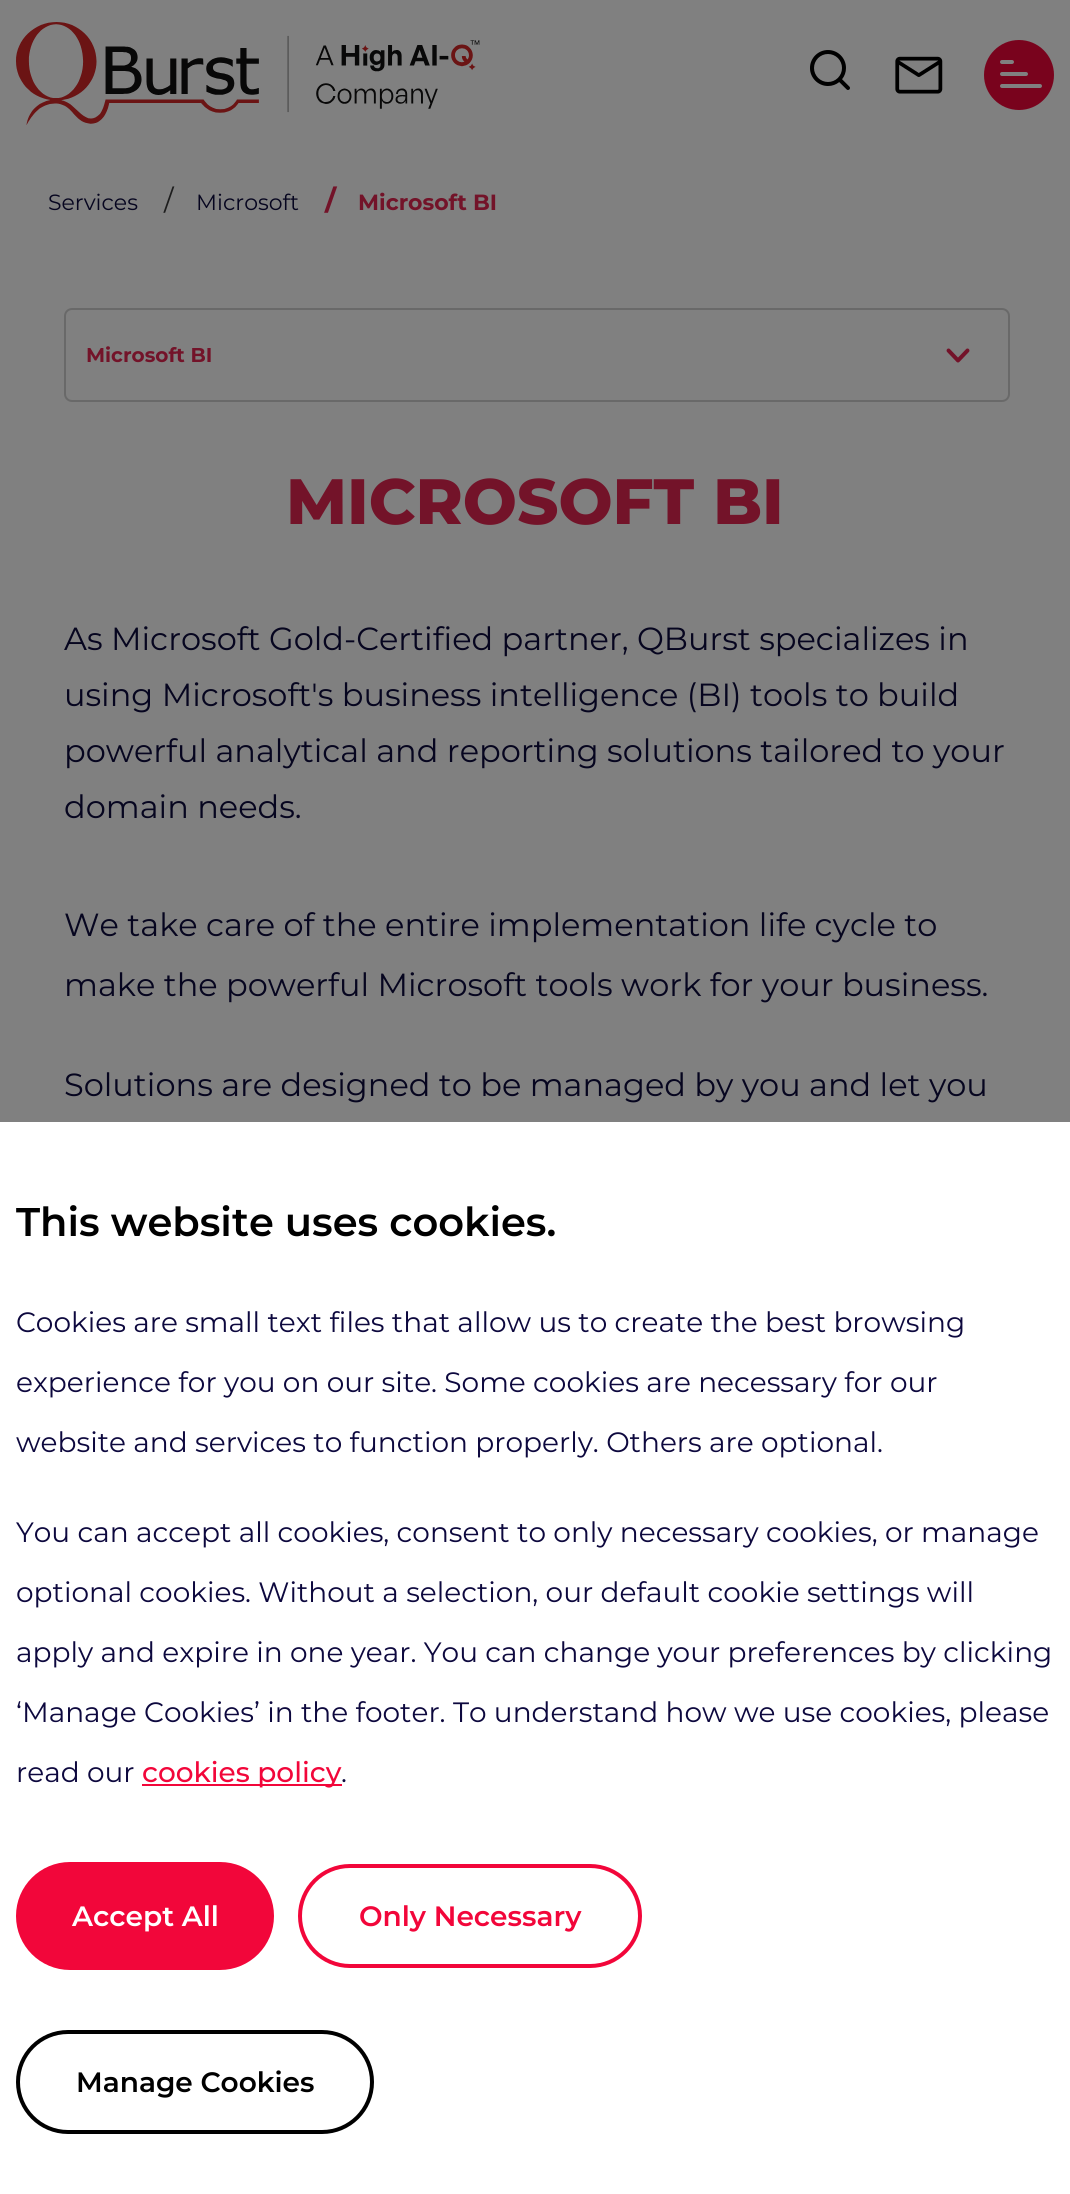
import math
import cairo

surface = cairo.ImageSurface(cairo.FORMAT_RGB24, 1070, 2194)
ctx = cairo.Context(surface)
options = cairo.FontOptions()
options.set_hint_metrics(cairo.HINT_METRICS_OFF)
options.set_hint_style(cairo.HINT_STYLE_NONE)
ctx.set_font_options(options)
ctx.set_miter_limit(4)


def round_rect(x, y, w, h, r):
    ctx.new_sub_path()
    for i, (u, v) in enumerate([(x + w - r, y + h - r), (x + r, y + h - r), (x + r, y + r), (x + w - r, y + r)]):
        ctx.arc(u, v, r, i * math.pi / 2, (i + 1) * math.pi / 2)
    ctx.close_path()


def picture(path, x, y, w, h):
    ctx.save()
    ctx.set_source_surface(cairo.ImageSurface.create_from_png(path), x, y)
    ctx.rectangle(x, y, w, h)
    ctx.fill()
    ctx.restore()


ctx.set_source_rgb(0.502, 0.502, 0.502)
ctx.paint()
ctx.select_font_face("Montserrat")
ctx.set_font_size(22)
ctx.set_source_rgb(0.027, 0.02, 0.122)
ctx.move_to(48, 210)
ctx.show_text("Services")
ctx.set_font_size(28)
ctx.set_source_rgb(0.114, 0.114, 0.114)
ctx.move_to(164, 210)
ctx.show_text("/")
ctx.set_font_size(22)
ctx.set_source_rgb(0.027, 0.02, 0.122)
ctx.move_to(196, 210)
ctx.show_text("Microsoft")
ctx.select_font_face("Montserrat", cairo.FONT_SLANT_NORMAL, cairo.FONT_WEIGHT_BOLD)
ctx.set_font_size(28)
ctx.set_source_rgb(0.451, 0.075, 0.161)
ctx.move_to(325, 210)
ctx.show_text("/")
ctx.set_font_size(22)
ctx.move_to(358, 210)
ctx.show_text("Microsoft BI")
round_rect(65, 309, 944, 92, 7)
ctx.set_source_rgb(0.412, 0.412, 0.412)
ctx.stroke()
ctx.set_font_size(20)
ctx.set_source_rgb(0.451, 0.075, 0.161)
ctx.move_to(86, 362)
ctx.show_text("Microsoft BI")
picture("img1.png", 946, 348, 24, 15)
ctx.select_font_face("Montserrat ExtraBold")
ctx.set_font_size(64)
ctx.move_to(286, 524)
ctx.show_text("MICROSOFT BI")
ctx.select_font_face("Montserrat")
ctx.set_font_size(32)
ctx.set_source_rgb(0.027, 0.02, 0.122)
ctx.move_to(64, 650)
ctx.show_text("As Microsoft Gold-Certified partner, QBurst specializes in")
ctx.move_to(64, 706)
ctx.show_text("using Microsoft's business intelligence (BI) tools to build")
ctx.move_to(64, 762)
ctx.show_text("powerful analytical and reporting solutions tailored to your")
ctx.move_to(64, 818)
ctx.show_text("domain needs.")
ctx.move_to(64, 936)
ctx.show_text("We take care of the entire implementation life cycle to")
ctx.move_to(64, 996)
ctx.show_text("make the powerful Microsoft tools work for your business.")
ctx.move_to(64, 1096)
ctx.show_text("Solutions are designed to be managed by you and let you")
picture("img2.png", 16, 22, 464, 103)
picture("img3.png", 810, 50, 40, 40)
picture("img4.png", 895, 56, 48, 38)
ctx.set_source_rgb(0.475, 0.012, 0.114)
ctx.arc(1019, 75, 35, 0, 2 * math.pi)
ctx.fill()
ctx.set_source_rgb(0.502, 0.502, 0.502)
round_rect(1000, 60, 14, 4, 2)
ctx.fill()
round_rect(1000, 72, 28, 4, 2)
ctx.fill()
round_rect(1000, 84, 42, 4, 2)
ctx.fill()
ctx.set_source_rgb(1, 1, 1)
ctx.rectangle(0, 1122, 1070, 1072)
ctx.fill()
ctx.select_font_face("Montserrat SemiBold")
ctx.set_font_size(40)
ctx.set_source_rgb(0, 0, 0)
ctx.move_to(16, 1236)
ctx.show_text("This website uses cookies.")
ctx.select_font_face("Montserrat")
ctx.set_font_size(28)
ctx.set_source_rgb(0.051, 0.035, 0.243)
ctx.move_to(16, 1332)
ctx.show_text("Cookies are small text files that allow us to create the best browsing")
ctx.move_to(16, 1392)
ctx.show_text("experience for you on our site. Some cookies are necessary for our")
ctx.move_to(16, 1452)
ctx.show_text("website and services to function properly. Others are optional.")
ctx.move_to(16, 1542)
ctx.show_text("You can accept all cookies, consent to only necessary cookies, or manage")
ctx.move_to(16, 1602)
ctx.show_text("optional cookies. Without a selection, our default cookie settings will")
ctx.move_to(16, 1662)
ctx.show_text("apply and expire in one year. You can change your preferences by clicking")
ctx.move_to(16, 1722)
ctx.show_text("‘Manage Cookies’ in the footer. To understand how we use cookies, please")
ctx.move_to(16, 1782)
ctx.show_text("read our")
ctx.set_source_rgb(0.949, 0.024, 0.227)
ctx.rectangle(142, 1784, 200, 2)
ctx.fill()
ctx.select_font_face("Montserrat Medium")
ctx.move_to(142, 1782)
ctx.show_text("cookies policy")
ctx.select_font_face("Montserrat")
ctx.set_source_rgb(0.051, 0.035, 0.243)
ctx.move_to(341, 1782)
ctx.show_text(".")
ctx.set_source_rgb(0.949, 0.024, 0.227)
round_rect(16, 1862, 258, 108, 54)
ctx.fill()
ctx.select_font_face("Montserrat SemiBold")
ctx.set_source_rgb(1, 1, 1)
ctx.move_to(72, 1926)
ctx.show_text("Accept All")
round_rect(300, 1866, 340, 100, 50)
ctx.set_source_rgb(0.949, 0.024, 0.227)
ctx.set_line_width(4)
ctx.stroke()
ctx.move_to(359, 1926)
ctx.show_text("Only Necessary")
round_rect(18, 2032, 354, 100, 50)
ctx.set_source_rgb(0, 0, 0)
ctx.stroke()
ctx.move_to(76, 2092)
ctx.show_text("Manage Cookies")
surface.write_to_png("page.png")
